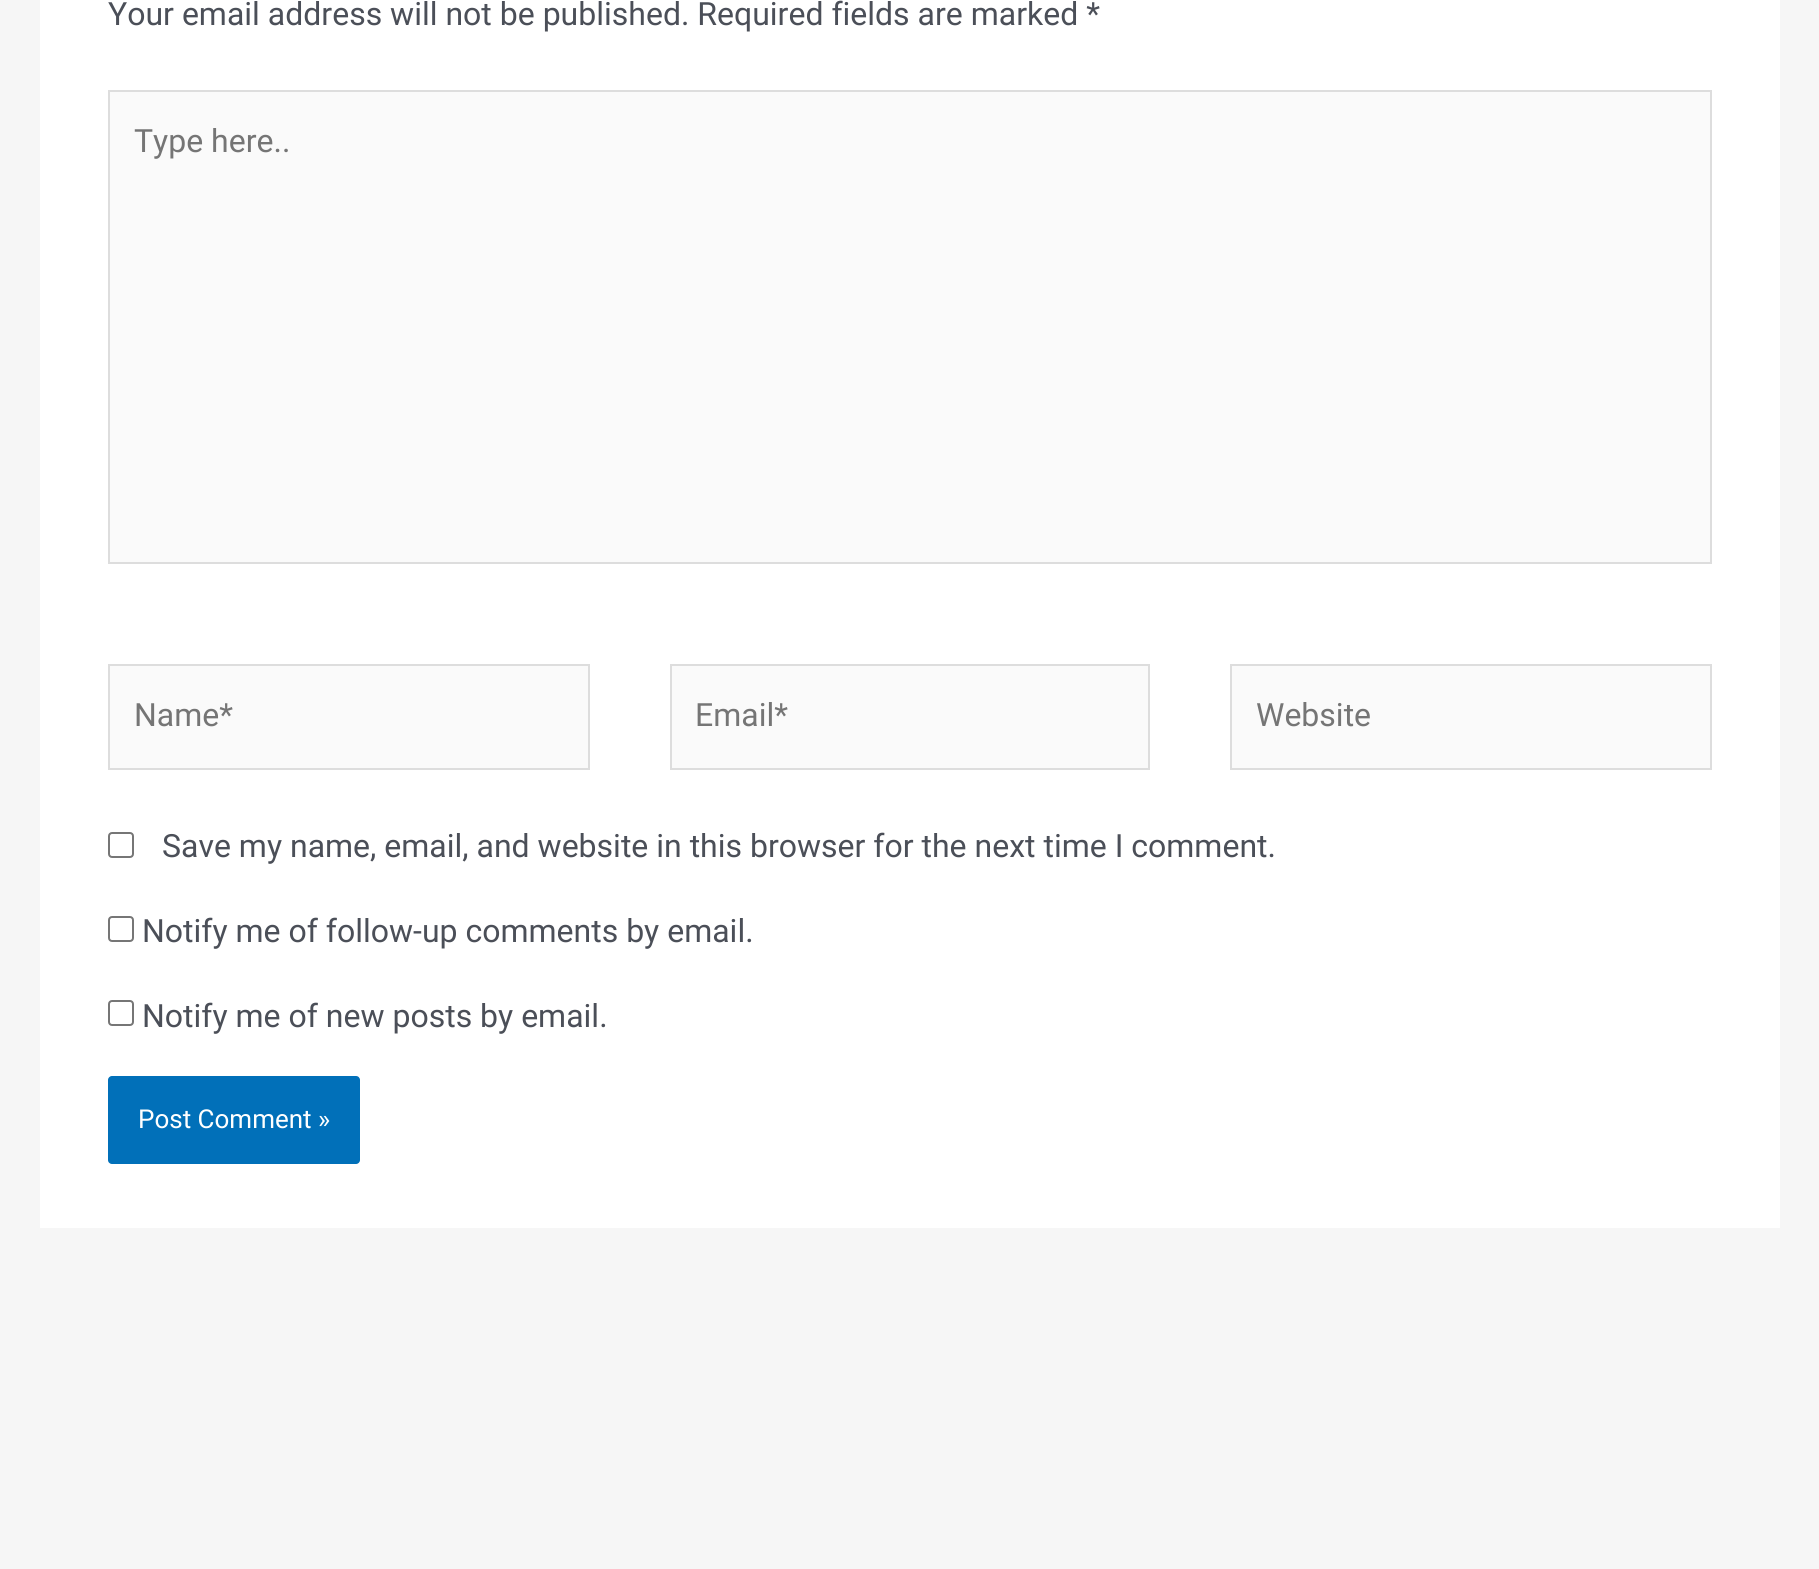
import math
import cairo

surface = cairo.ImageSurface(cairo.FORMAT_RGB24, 1819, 1569)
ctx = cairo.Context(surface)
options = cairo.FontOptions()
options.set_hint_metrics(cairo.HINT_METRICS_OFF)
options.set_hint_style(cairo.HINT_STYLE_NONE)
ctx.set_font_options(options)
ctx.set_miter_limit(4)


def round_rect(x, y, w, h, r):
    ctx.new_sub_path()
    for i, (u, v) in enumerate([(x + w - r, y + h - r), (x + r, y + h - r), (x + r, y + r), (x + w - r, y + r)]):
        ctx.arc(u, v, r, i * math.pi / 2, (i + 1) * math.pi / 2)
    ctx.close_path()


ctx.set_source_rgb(0.961, 0.961, 0.961)
ctx.paint()
ctx.set_source_rgb(1, 1, 1)
ctx.rectangle(40, 0, 1740, 1228)
ctx.fill()
ctx.select_font_face("Roboto")
ctx.set_font_size(32)
ctx.set_source_rgb(0.294, 0.31, 0.345)
ctx.move_to(108, 25)
ctx.show_text("Your email address will not be published. Required fields are marked *")
ctx.set_source_rgb(0.98, 0.98, 0.98)
ctx.rectangle(109, 91, 1602, 472)
ctx.fill_preserve()
ctx.set_source_rgb(0.867, 0.867, 0.867)
ctx.stroke()
ctx.set_source_rgb(0.459, 0.459, 0.459)
ctx.move_to(134, 152)
ctx.show_text("Type here..")
ctx.set_source_rgb(0.98, 0.98, 0.98)
ctx.rectangle(109, 665, 480, 104)
ctx.fill_preserve()
ctx.set_source_rgb(0.867, 0.867, 0.867)
ctx.stroke()
ctx.set_source_rgb(0.459, 0.459, 0.459)
ctx.move_to(134, 726)
ctx.show_text("Name*")
ctx.set_source_rgb(0.98, 0.98, 0.98)
ctx.rectangle(671, 665, 478, 104)
ctx.fill_preserve()
ctx.set_source_rgb(0.867, 0.867, 0.867)
ctx.stroke()
ctx.set_source_rgb(0.459, 0.459, 0.459)
ctx.move_to(695, 726)
ctx.show_text("Email*")
ctx.set_source_rgb(0.98, 0.98, 0.98)
ctx.rectangle(1231, 665, 480, 104)
ctx.fill_preserve()
ctx.set_source_rgb(0.867, 0.867, 0.867)
ctx.stroke()
ctx.set_source_rgb(0.459, 0.459, 0.459)
ctx.move_to(1256, 726)
ctx.show_text("Website")
round_rect(109, 833, 24, 24, 3)
ctx.set_source_rgb(0.463, 0.463, 0.463)
ctx.stroke()
ctx.set_source_rgb(0.294, 0.31, 0.345)
ctx.move_to(162, 857)
ctx.show_text("Save my name, email, and website in this browser for the next time I comment.")
round_rect(109, 917, 24, 24, 3)
ctx.set_source_rgb(0.463, 0.463, 0.463)
ctx.stroke()
ctx.set_source_rgb(0.294, 0.31, 0.345)
ctx.move_to(142, 942)
ctx.show_text("Notify me of follow-up comments by email.")
round_rect(109, 1001, 24, 24, 3)
ctx.set_source_rgb(0.463, 0.463, 0.463)
ctx.stroke()
ctx.set_source_rgb(0.294, 0.31, 0.345)
ctx.move_to(142, 1027)
ctx.show_text("Notify me of new posts by email.")
ctx.set_source_rgb(0.004, 0.439, 0.725)
round_rect(108, 1076, 252, 88, 4)
ctx.fill()
ctx.set_font_size(26)
ctx.set_source_rgb(1, 1, 1)
ctx.move_to(138, 1128)
ctx.show_text("Post Comment »")
surface.write_to_png("page.png")
